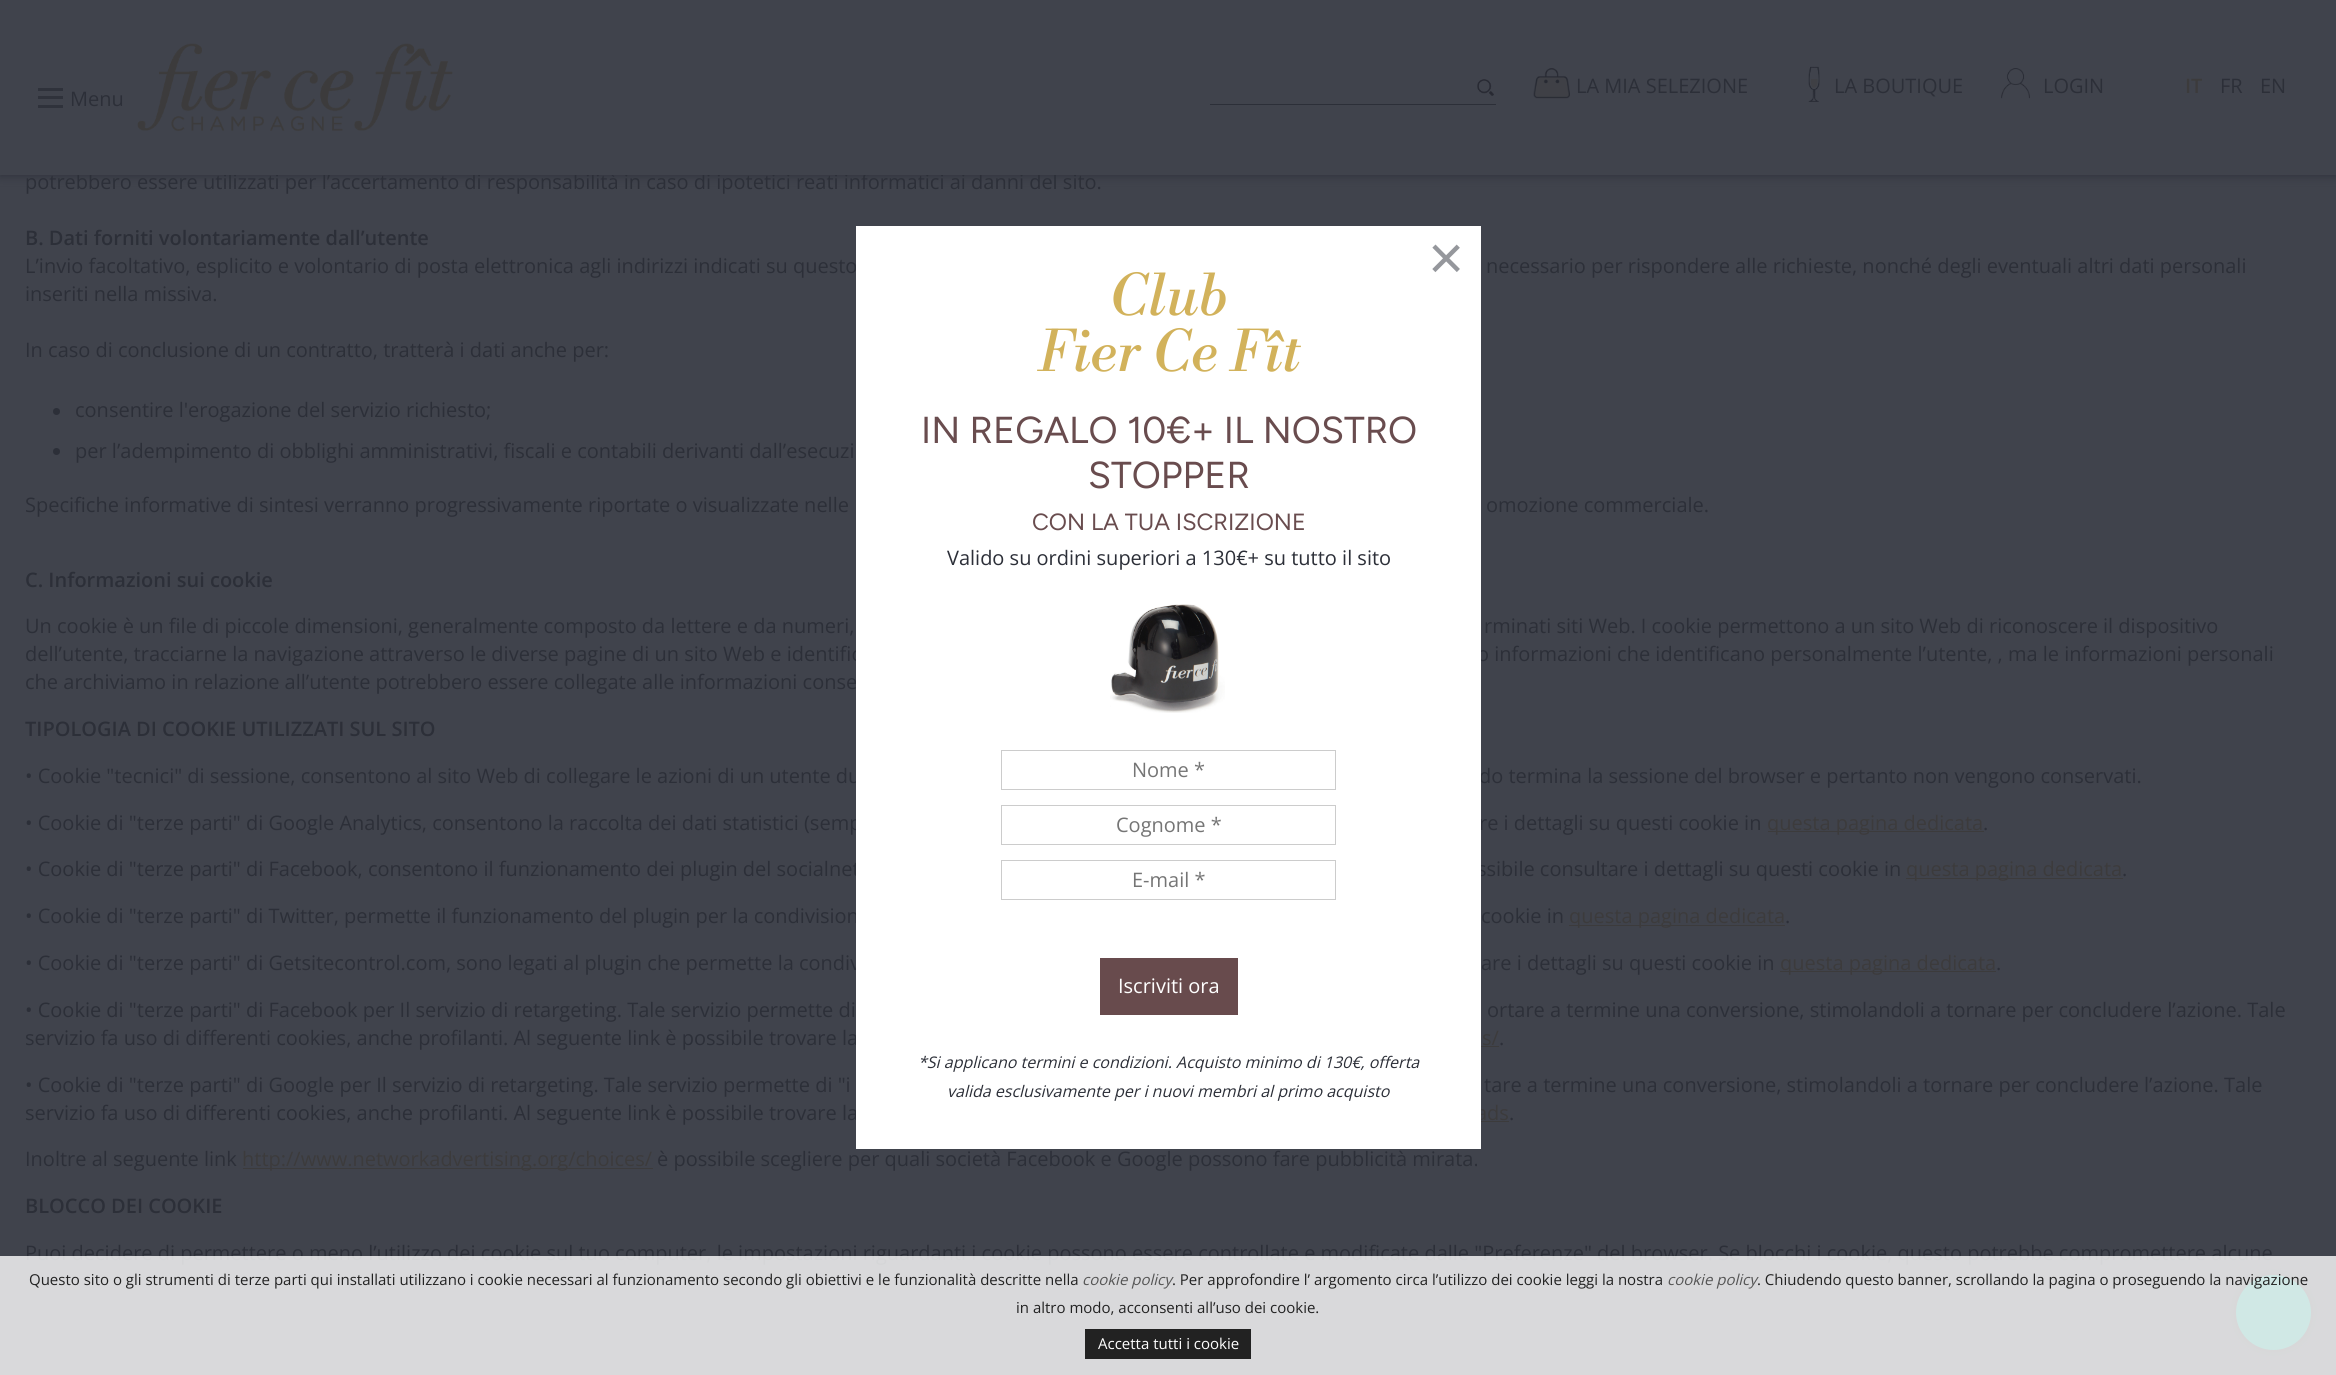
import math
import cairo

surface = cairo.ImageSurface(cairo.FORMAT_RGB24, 2336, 1375)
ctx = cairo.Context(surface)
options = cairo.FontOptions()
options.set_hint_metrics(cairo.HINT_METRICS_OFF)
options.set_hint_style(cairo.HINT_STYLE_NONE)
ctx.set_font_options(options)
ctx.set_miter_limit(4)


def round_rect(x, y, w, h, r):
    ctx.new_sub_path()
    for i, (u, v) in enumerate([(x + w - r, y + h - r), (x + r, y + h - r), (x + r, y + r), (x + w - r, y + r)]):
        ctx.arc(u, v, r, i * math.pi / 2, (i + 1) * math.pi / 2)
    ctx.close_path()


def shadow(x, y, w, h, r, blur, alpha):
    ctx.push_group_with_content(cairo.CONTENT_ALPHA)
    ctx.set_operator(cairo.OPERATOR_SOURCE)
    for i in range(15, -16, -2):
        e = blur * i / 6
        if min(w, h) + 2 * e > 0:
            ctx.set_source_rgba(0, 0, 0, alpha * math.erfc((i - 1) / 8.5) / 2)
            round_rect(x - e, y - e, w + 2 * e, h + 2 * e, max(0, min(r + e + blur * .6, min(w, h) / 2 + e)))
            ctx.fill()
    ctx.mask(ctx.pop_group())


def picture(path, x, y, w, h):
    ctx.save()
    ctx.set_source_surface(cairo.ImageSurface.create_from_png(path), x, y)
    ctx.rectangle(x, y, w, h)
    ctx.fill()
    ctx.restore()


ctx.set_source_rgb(0.251, 0.263, 0.298)
ctx.paint()
ctx.set_source_rgb(0.173, 0.184, 0.22)
shadow(0, 0, 2336, 175, 0, 5, 1)
ctx.select_font_face("Open Sans")
ctx.set_font_size(20)
ctx.set_source_rgb(0.173, 0.184, 0.22)
ctx.move_to(25, 189)
ctx.show_text("potrebbero essere utilizzati per l’accertamento di responsabilità in caso di ipotetici reati informatici ai danni del sito.")
ctx.set_source_rgb(0.251, 0.263, 0.298)
ctx.rectangle(0, 0, 2336, 175)
ctx.fill()
picture("img1.png", 1477, 79, 17, 17)
ctx.set_source_rgb(0.173, 0.184, 0.22)
ctx.rectangle(1210, 104, 286, 1)
ctx.fill()
picture("img2.png", 1533, 68, 37, 31)
ctx.move_to(1576, 93)
ctx.show_text("LA MIA SELEZIONE")
picture("img3.png", 1808, 66, 12, 36)
ctx.move_to(1834, 93)
ctx.show_text("LA BOUTIQUE")
picture("img4.png", 2001, 68, 29, 31)
ctx.move_to(2043, 93)
ctx.show_text("LOGIN")
ctx.select_font_face("Open Sans SemiBold")
ctx.set_source_rgb(0.235, 0.231, 0.235)
ctx.move_to(2185, 93)
ctx.show_text("IT")
ctx.select_font_face("Open Sans")
ctx.set_source_rgb(0.173, 0.184, 0.22)
ctx.move_to(2220, 93)
ctx.show_text("FR")
ctx.move_to(2260, 93)
ctx.show_text("EN")
ctx.set_source_rgb(0.184, 0.196, 0.231)
ctx.rectangle(38, 88, 25, 3)
ctx.fill()
ctx.rectangle(38, 96, 25, 3)
ctx.fill()
ctx.set_source_rgb(0.173, 0.184, 0.22)
ctx.move_to(70, 106)
ctx.show_text("Menu")
ctx.set_source_rgb(0.184, 0.196, 0.231)
ctx.rectangle(38, 105, 25, 3)
ctx.fill()
picture("img5.png", 137, 43, 316, 89)
ctx.select_font_face("Open Sans SemiBold")
ctx.set_source_rgb(0.173, 0.184, 0.22)
ctx.move_to(25, 245)
ctx.show_text("B. Dati forniti volontariamente dall’utente")
ctx.select_font_face("Open Sans")
ctx.move_to(25, 273)
ctx.show_text("L’invio facoltativo, esplicito e volontario di posta elettronica agli indirizzi indicati su questo")
ctx.move_to(1486, 273)
ctx.show_text("necessario per rispondere alle richieste, nonché degli eventuali altri dati personali")
ctx.move_to(25, 301)
ctx.show_text("inseriti nella missiva.")
ctx.move_to(25, 357)
ctx.show_text("In caso di conclusione di un contratto, tratterà i dati anche per:")
ctx.new_path()
ctx.arc(56.5, 411.5, 3.5, 0, 2 * math.pi)
ctx.fill()
ctx.move_to(75, 417)
ctx.show_text("consentire l'erogazione del servizio richiesto;")
ctx.new_path()
ctx.arc(56.5, 451.5, 3.5, 0, 2 * math.pi)
ctx.fill()
ctx.move_to(75, 458)
ctx.show_text("per l’adempimento di obblighi amministrativi, fiscali e contabili derivanti dall’esecuzi")
ctx.move_to(25, 512)
ctx.show_text("Specifiche informative di sintesi verranno progressivamente riportate o visualizzate nelle")
ctx.move_to(1486, 512)
ctx.show_text("omozione commerciale.")
ctx.select_font_face("Open Sans SemiBold")
ctx.move_to(25, 587)
ctx.show_text("C. Informazioni sui cookie")
ctx.select_font_face("Open Sans")
ctx.move_to(25, 633)
ctx.show_text("Un cookie è un file di piccole dimensioni, generalmente composto da lettere e da numeri,")
ctx.move_to(1484, 633)
ctx.show_text("rminati siti Web. I cookie permettono a un sito Web di riconoscere il dispositivo")
ctx.move_to(25, 661)
ctx.show_text("dell’utente, tracciarne la navigazione attraverso le diverse pagine di un sito Web e identific")
ctx.move_to(1477, 661)
ctx.show_text("o informazioni che identificano personalmente l’utente, , ma le informazioni personali")
ctx.move_to(25, 689)
ctx.show_text("che archiviamo in relazione all’utente potrebbero essere collegate alle informazioni conse")
ctx.select_font_face("Open Sans SemiBold")
ctx.move_to(25, 736)
ctx.show_text("TIPOLOGIA DI COOKIE UTILIZZATI SUL SITO")
ctx.select_font_face("Open Sans")
ctx.move_to(25, 783)
ctx.show_text("• Cookie \"tecnici\" di sessione, consentono al sito Web di collegare le azioni di un utente du")
ctx.move_to(1479, 783)
ctx.show_text("do termina la sessione del browser e pertanto non vengono conservati.")
ctx.move_to(25, 830)
ctx.show_text("• Cookie di \"terze parti\" di Google Analytics, consentono la raccolta dei dati statistici (semp")
ctx.move_to(1479, 830)
ctx.show_text("re i dettagli su questi cookie in")
ctx.set_source_rgb(0.235, 0.231, 0.235)
ctx.rectangle(1768, 831, 216, 1)
ctx.fill()
ctx.move_to(1767, 830)
ctx.show_text("questa pagina dedicata")
ctx.set_source_rgb(0.173, 0.184, 0.22)
ctx.move_to(1983, 830)
ctx.show_text(".")
ctx.move_to(25, 876)
ctx.show_text("• Cookie di \"terze parti\" di Facebook, consentono il funzionamento dei plugin del socialnet")
ctx.move_to(1477, 876)
ctx.show_text("ssibile consultare i dettagli su questi cookie in")
ctx.set_source_rgb(0.235, 0.231, 0.235)
ctx.rectangle(1906, 878, 217, 1)
ctx.fill()
ctx.move_to(1906, 876)
ctx.show_text("questa pagina dedicata")
ctx.set_source_rgb(0.173, 0.184, 0.22)
ctx.move_to(2122, 876)
ctx.show_text(".")
ctx.move_to(25, 923)
ctx.show_text("• Cookie di \"terze parti\" di Twitter, permette il funzionamento del plugin per la condivision")
ctx.move_to(1481, 923)
ctx.show_text("cookie in")
ctx.set_source_rgb(0.235, 0.231, 0.235)
ctx.rectangle(1569, 925, 216, 1)
ctx.fill()
ctx.move_to(1569, 923)
ctx.show_text("questa pagina dedicata")
ctx.set_source_rgb(0.173, 0.184, 0.22)
ctx.move_to(1785, 923)
ctx.show_text(".")
ctx.move_to(25, 970)
ctx.show_text("• Cookie di \"terze parti\" di Getsitecontrol.com, sono legati al plugin che permette la condiv")
ctx.move_to(1481, 970)
ctx.show_text("are i dettagli su questi cookie in")
ctx.set_source_rgb(0.235, 0.231, 0.235)
ctx.rectangle(1780, 971, 216, 1)
ctx.fill()
ctx.move_to(1780, 970)
ctx.show_text("questa pagina dedicata")
ctx.set_source_rgb(0.173, 0.184, 0.22)
ctx.move_to(1996, 970)
ctx.show_text(".")
ctx.move_to(25, 1017)
ctx.show_text("• Cookie di \"terze parti\" di Facebook per Il servizio di retargeting. Tale servizio permette di")
ctx.move_to(1487, 1017)
ctx.show_text("ortare a termine una conversione, stimolandoli a tornare per concludere l’azione. Tale")
ctx.move_to(25, 1045)
ctx.show_text("servizio fa uso di differenti cookies, anche profilanti. Al seguente link è possibile trovare la")
ctx.set_source_rgb(0.235, 0.231, 0.235)
ctx.move_to(1482, 1045)
ctx.show_text("s/")
ctx.rectangle(1481, 1046, 18, 1)
ctx.fill()
ctx.set_source_rgb(0.173, 0.184, 0.22)
ctx.move_to(1499, 1045)
ctx.show_text(".")
ctx.move_to(25, 1092)
ctx.show_text("• Cookie di \"terze parti\" di Google per Il servizio di retargeting. Tale servizio permette di \"i")
ctx.move_to(1484, 1092)
ctx.show_text("tare a termine una conversione, stimolandoli a tornare per concludere l’azione. Tale")
ctx.move_to(25, 1120)
ctx.show_text("servizio fa uso di differenti cookies, anche profilanti. Al seguente link è possibile trovare la")
ctx.set_source_rgb(0.235, 0.231, 0.235)
ctx.move_to(1476, 1120)
ctx.show_text("ads")
ctx.rectangle(1481, 1121, 28, 1)
ctx.fill()
ctx.set_source_rgb(0.173, 0.184, 0.22)
ctx.move_to(1509, 1120)
ctx.show_text(".")
ctx.move_to(25, 1166)
ctx.show_text("Inoltre al seguente link")
ctx.set_source_rgb(0.235, 0.231, 0.235)
ctx.rectangle(243, 1168, 410, 1)
ctx.fill()
ctx.move_to(242, 1166)
ctx.show_text("http://www.networkadvertising.org/choices/")
ctx.set_source_rgb(0.173, 0.184, 0.22)
ctx.move_to(657, 1166)
ctx.show_text("è possibile scegliere per quali società Facebook e Google possono fare pubblicità mirata.")
ctx.select_font_face("Open Sans SemiBold")
ctx.move_to(25, 1213)
ctx.show_text("BLOCCO DEI COOKIE")
ctx.select_font_face("Open Sans")
ctx.move_to(25, 1260)
ctx.show_text("Puoi decidere di permettere o meno l’utilizzo dei cookie sul tuo computer, le impostazioni riguardanti i cookie possono essere controllate e modificate dalle \"Preferenze\" del browser. Se blocchi i cookie, questo potrebbe compromettere alcune")
ctx.set_source_rgb(1, 1, 1)
ctx.rectangle(856, 226, 625, 923)
ctx.fill()
ctx.select_font_face("Liberation Sans")
ctx.set_font_size(62)
ctx.set_source_rgb(0.584, 0.592, 0.612)
ctx.move_to(1428, 279)
ctx.show_text("×")
ctx.select_font_face("Libre Bodoni", cairo.FONT_SLANT_ITALIC)
ctx.set_font_size(56.25)
ctx.set_source_rgb(0.824, 0.698, 0.357)
ctx.move_to(1109, 315)
ctx.show_text("Club")
ctx.move_to(1037, 371)
ctx.show_text("Fier Ce Fît")
ctx.select_font_face("Figtree Light")
ctx.set_font_size(37.5)
ctx.set_source_rgb(0.412, 0.298, 0.306)
ctx.move_to(921, 443)
ctx.show_text("IN REGALO 10€+ IL NOSTRO")
ctx.move_to(1088, 488)
ctx.show_text("STOPPER")
ctx.set_font_size(23.4)
ctx.move_to(1032, 530)
ctx.show_text("CON LA TUA ISCRIZIONE")
ctx.select_font_face("Open Sans")
ctx.set_font_size(20)
ctx.set_source_rgb(0.173, 0.184, 0.22)
ctx.move_to(947, 565)
ctx.show_text("Valido su ordini superiori a 130€+ su tutto il sito")
picture("img6.png", 1110, 604, 115, 109)
ctx.rectangle(1001.5, 750.5, 334, 39)
ctx.set_source_rgb(0.8, 0.8, 0.8)
ctx.set_line_width(1)
ctx.stroke()
ctx.set_source_rgb(0.459, 0.459, 0.459)
ctx.move_to(1132, 777)
ctx.show_text("Nome *")
ctx.rectangle(1001.5, 805.5, 334, 39)
ctx.set_source_rgb(0.8, 0.8, 0.8)
ctx.stroke()
ctx.set_source_rgb(0.459, 0.459, 0.459)
ctx.move_to(1116, 832)
ctx.show_text("Cognome *")
ctx.rectangle(1001.5, 860.5, 334, 39)
ctx.set_source_rgb(0.8, 0.8, 0.8)
ctx.stroke()
ctx.set_source_rgb(0.459, 0.459, 0.459)
ctx.move_to(1132, 887)
ctx.show_text("E-mail *")
ctx.set_source_rgb(0.408, 0.294, 0.302)
ctx.rectangle(1100, 958, 138, 57)
ctx.fill()
ctx.set_source_rgb(1, 1, 1)
ctx.move_to(1118, 993)
ctx.show_text("Iscriviti ora")
ctx.select_font_face("Open Sans", cairo.FONT_SLANT_ITALIC)
ctx.set_font_size(16)
ctx.set_source_rgb(0.173, 0.184, 0.22)
ctx.move_to(918, 1068)
ctx.show_text("*Si applicano termini e condizioni. Acquisto minimo di 130€, offerta")
ctx.move_to(947, 1097)
ctx.show_text("valida esclusivamente per i nuovi membri al primo acquisto")
ctx.set_source_rgb(0.2, 0.2, 0.2)
shadow(2236, 1275, 75, 75, 37.5, 5, 1)
ctx.set_source_rgb(0.071, 0.549, 0.494)
ctx.arc(2273.5, 1312.5, 37.5, 0, 2 * math.pi)
ctx.fill()
ctx.set_source_rgba(1, 1, 1, 0.8)
ctx.rectangle(0, 1256, 2336, 119)
ctx.fill()
ctx.select_font_face("Open Sans")
ctx.set_font_size(15)
ctx.set_source_rgb(0.133, 0.133, 0.133)
ctx.move_to(29, 1285)
ctx.show_text("Questo sito o gli strumenti di terze parti qui installati utilizzano i cookie necessari al funzionamento secondo gli obiettivi e le funzionalità descritte nella")
ctx.select_font_face("Open Sans", cairo.FONT_SLANT_ITALIC)
ctx.set_source_rgb(0.333, 0.333, 0.333)
ctx.move_to(1082, 1285)
ctx.show_text("cookie policy")
ctx.select_font_face("Open Sans")
ctx.set_source_rgb(0.133, 0.133, 0.133)
ctx.move_to(1172, 1285)
ctx.show_text(". Per approfondire l’ argomento circa l’utilizzo dei cookie leggi la nostra")
ctx.select_font_face("Open Sans", cairo.FONT_SLANT_ITALIC)
ctx.set_source_rgb(0.333, 0.333, 0.333)
ctx.move_to(1667, 1285)
ctx.show_text("cookie policy")
ctx.select_font_face("Open Sans")
ctx.set_source_rgb(0.133, 0.133, 0.133)
ctx.move_to(1757, 1285)
ctx.show_text(". Chiudendo questo banner, scrollando la pagina o proseguendo la navigazione")
ctx.move_to(1016, 1313)
ctx.show_text("in altro modo, acconsenti all’uso dei cookie.")
ctx.rectangle(1085, 1329, 166, 30)
ctx.fill()
ctx.set_source_rgb(1, 1, 1)
ctx.move_to(1098, 1349)
ctx.show_text("Accetta tutti i cookie")
surface.write_to_png("page.png")
